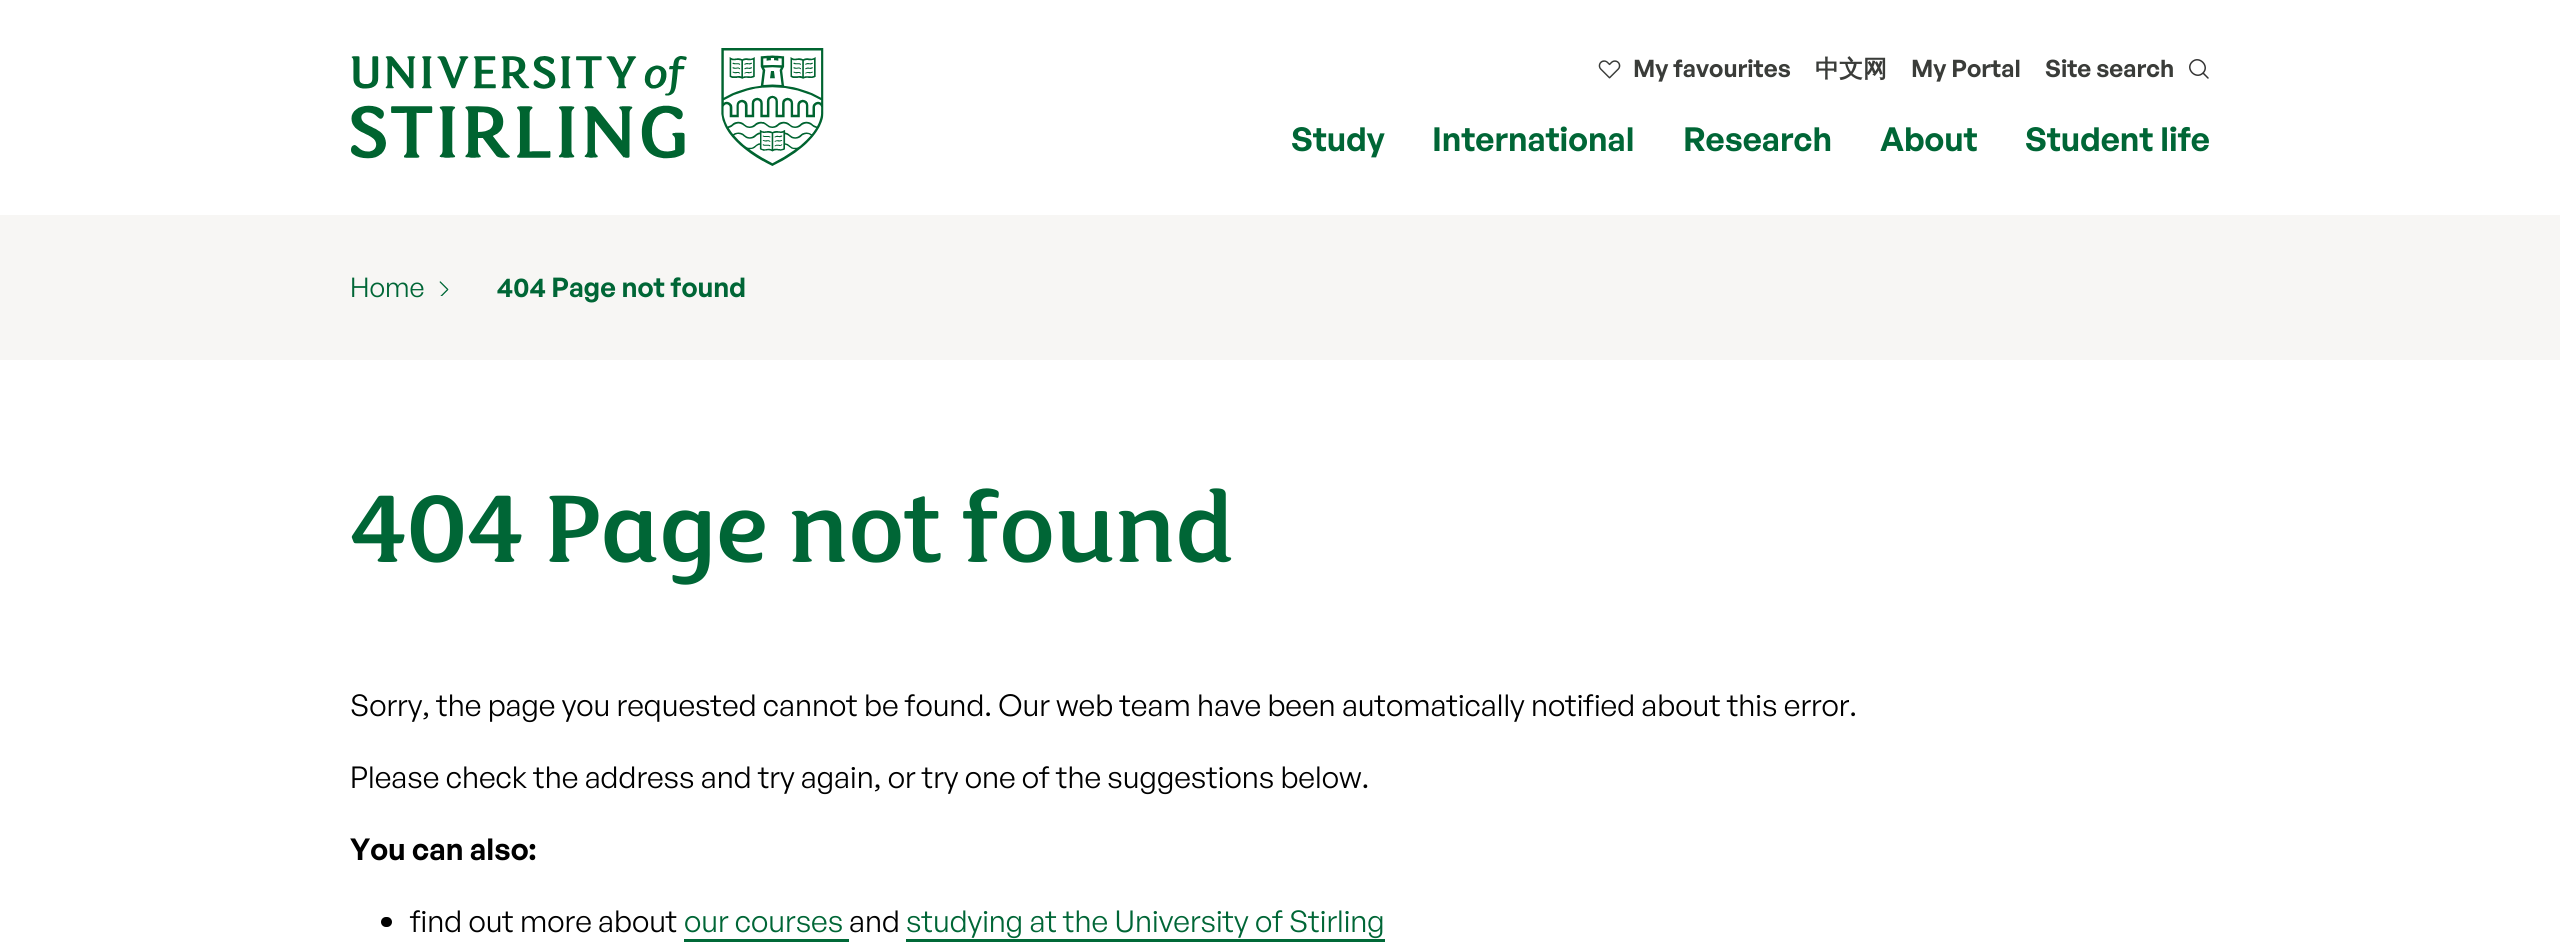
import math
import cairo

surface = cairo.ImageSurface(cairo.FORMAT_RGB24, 2560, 944)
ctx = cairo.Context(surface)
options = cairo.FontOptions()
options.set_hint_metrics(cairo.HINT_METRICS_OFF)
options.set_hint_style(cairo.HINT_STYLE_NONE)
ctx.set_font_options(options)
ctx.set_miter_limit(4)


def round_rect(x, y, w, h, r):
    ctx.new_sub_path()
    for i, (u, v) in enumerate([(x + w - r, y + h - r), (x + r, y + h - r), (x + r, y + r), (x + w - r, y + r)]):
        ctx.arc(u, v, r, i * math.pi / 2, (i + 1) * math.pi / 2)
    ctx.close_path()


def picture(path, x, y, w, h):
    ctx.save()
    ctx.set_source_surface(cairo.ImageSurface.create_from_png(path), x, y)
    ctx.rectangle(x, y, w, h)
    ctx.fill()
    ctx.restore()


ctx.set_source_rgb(1, 1, 1)
ctx.paint()
picture("img1.png", 351, 48, 473, 118)
picture("img2.png", 1598, 60, 23, 19)
ctx.select_font_face("General Sans SemiBold")
ctx.set_font_size(24)
ctx.set_source_rgb(0.227, 0.235, 0.224)
ctx.move_to(1633, 77)
ctx.show_text("My favourites")
ctx.select_font_face("WenQuanYi Zen Hei", cairo.FONT_SLANT_NORMAL, cairo.FONT_WEIGHT_BOLD)
ctx.move_to(1815, 77)
ctx.show_text("中文网")
ctx.select_font_face("General Sans SemiBold")
ctx.move_to(1911, 77)
ctx.show_text("My Portal")
ctx.move_to(2045, 77)
ctx.show_text("Site search")
ctx.new_path()
ctx.move_to(2208, 78)
ctx.line_to(2203, 73)
ctx.move_to(2203, 73)
ctx.curve_to(2210, 66, 2199, 55, 2192, 62)
ctx.curve_to(2185, 69, 2196, 80, 2203, 73)
ctx.close_path()
ctx.set_source_rgb(0.2, 0.2, 0.2)
ctx.set_line_width(1.5)
ctx.set_line_cap(cairo.LINE_CAP_ROUND)
ctx.set_line_join(cairo.LINE_JOIN_ROUND)
ctx.stroke()
ctx.set_font_size(33)
ctx.set_source_rgb(0, 0.4, 0.212)
ctx.move_to(1291, 151)
ctx.show_text("Study")
ctx.move_to(1432, 151)
ctx.show_text("International")
ctx.move_to(1683, 151)
ctx.show_text("Research")
ctx.move_to(1880, 151)
ctx.show_text("About")
ctx.move_to(2025, 151)
ctx.show_text("Student life")
ctx.set_source_rgb(0.965, 0.961, 0.957)
ctx.rectangle(0, 215, 2560, 145)
ctx.fill()
ctx.select_font_face("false")
ctx.set_font_size(27)
ctx.set_source_rgb(0, 0.4, 0.212)
ctx.move_to(350, 297)
ctx.show_text("Home")
picture("img3.png", 439, 281, 10, 15)
ctx.select_font_face("General Sans SemiBold")
ctx.move_to(497, 297)
ctx.show_text("404 Page not found")
ctx.select_font_face("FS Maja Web")
ctx.set_font_size(108)
ctx.move_to(350, 562)
ctx.show_text("404 Page not found")
ctx.select_font_face("false")
ctx.set_font_size(30)
ctx.set_source_rgb(0, 0, 0)
ctx.move_to(350, 716)
ctx.show_text("Sorry, the page you requested cannot be found. Our web team have been automatically notified about this error.")
ctx.move_to(350, 788)
ctx.show_text("Please check the address and try again, or try one of the suggestions below.")
ctx.select_font_face("General Sans SemiBold")
ctx.move_to(350, 860)
ctx.show_text("You can also:")
round_rect(381, 917, 11, 10, 5)
ctx.fill()
ctx.select_font_face("false")
ctx.move_to(410, 932)
ctx.show_text("find out more about")
ctx.set_source_rgb(0, 0.4, 0.212)
ctx.move_to(684, 932)
ctx.show_text("our courses")
ctx.set_source_rgb(0, 0.412, 0.22)
ctx.rectangle(684, 939, 165, 3)
ctx.fill()
ctx.set_source_rgb(0, 0, 0)
ctx.move_to(849, 932)
ctx.show_text("and")
ctx.set_source_rgb(0, 0.4, 0.212)
ctx.move_to(906, 932)
ctx.show_text("studying at the University of Stirling")
ctx.set_source_rgb(0, 0.412, 0.22)
ctx.rectangle(906, 939, 479, 3)
ctx.fill()
surface.write_to_png("page.png")
